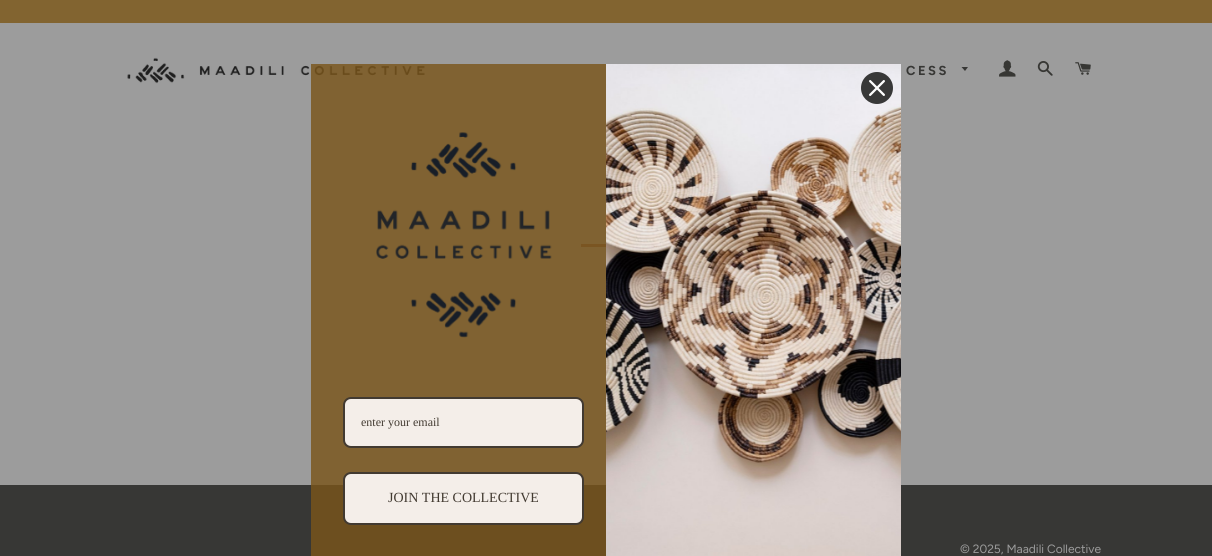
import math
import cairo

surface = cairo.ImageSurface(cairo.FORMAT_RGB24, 1212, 556)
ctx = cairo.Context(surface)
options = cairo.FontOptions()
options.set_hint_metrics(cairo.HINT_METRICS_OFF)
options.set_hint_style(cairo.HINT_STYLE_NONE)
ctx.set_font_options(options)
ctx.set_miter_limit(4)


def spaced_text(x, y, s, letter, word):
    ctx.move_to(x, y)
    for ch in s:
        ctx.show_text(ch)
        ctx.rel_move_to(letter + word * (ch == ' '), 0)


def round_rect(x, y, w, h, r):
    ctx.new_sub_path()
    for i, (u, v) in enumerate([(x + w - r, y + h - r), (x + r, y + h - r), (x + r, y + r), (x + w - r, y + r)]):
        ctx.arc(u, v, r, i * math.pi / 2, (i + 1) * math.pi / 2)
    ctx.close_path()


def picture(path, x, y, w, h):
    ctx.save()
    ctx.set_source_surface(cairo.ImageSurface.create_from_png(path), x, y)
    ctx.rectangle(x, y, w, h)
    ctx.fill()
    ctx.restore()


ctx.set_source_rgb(0.612, 0.612, 0.612)
ctx.paint()
ctx.set_source_rgb(0.51, 0.392, 0.188)
ctx.rectangle(0, 0, 1212, 23)
ctx.fill()
picture("img1.png", 127, 57, 298, 27)
ctx.select_font_face("Figtree", cairo.FONT_SLANT_NORMAL, cairo.FONT_WEIGHT_BOLD)
ctx.set_font_size(13)
ctx.set_source_rgb(0.216, 0.216, 0.208)
spaced_text(906, 75, "CESS", 2.5, 0)
ctx.new_path()
ctx.move_to(961.5, 67)
ctx.line_to(965, 71)
ctx.line_to(968, 67)
ctx.close_path()
ctx.fill()
picture("img2.png", 999, 60, 17, 17)
picture("img3.png", 1037, 61, 16, 15)
picture("img4.png", 1075, 62, 16, 13)
ctx.rectangle(0, 485, 1212, 71)
ctx.fill()
picture("img7.png", 606, 64, 295, 492)
ctx.set_source_rgb(0.22, 0.22, 0.22)
ctx.arc(877, 88, 16, 0, 2 * math.pi)
ctx.fill()
picture("img5.png", 869, 80, 16, 16)
ctx.set_source_rgb(0.471, 0.333, 0.275)
ctx.rectangle(581, 244, 25, 3)
ctx.fill()
ctx.set_source_rgba(0.482, 0.333, 0.106, 0.81)
ctx.rectangle(311, 64, 295, 492)
ctx.fill()
picture("img6.png", 376, 132, 176, 206)
ctx.set_source_rgb(0.957, 0.933, 0.914)
round_rect(344, 398, 239, 49, 7)
ctx.fill_preserve()
ctx.set_source_rgb(0.259, 0.227, 0.192)
ctx.stroke()
ctx.select_font_face("Liberation Serif")
ctx.set_font_size(12)
ctx.move_to(361, 426)
ctx.show_text("enter your email")
ctx.set_source_rgb(0.957, 0.933, 0.914)
round_rect(344, 473, 239, 51, 7)
ctx.fill_preserve()
ctx.set_source_rgb(0.259, 0.227, 0.192)
ctx.stroke()
ctx.set_font_size(14)
ctx.move_to(388, 502)
ctx.show_text("JOIN THE COLLECTIVE")
ctx.select_font_face("Figtree")
ctx.set_font_size(12)
ctx.set_source_rgb(0.612, 0.612, 0.612)
ctx.move_to(960, 553)
ctx.show_text("© 2025, Maadili Collective")
surface.write_to_png("page.png")
